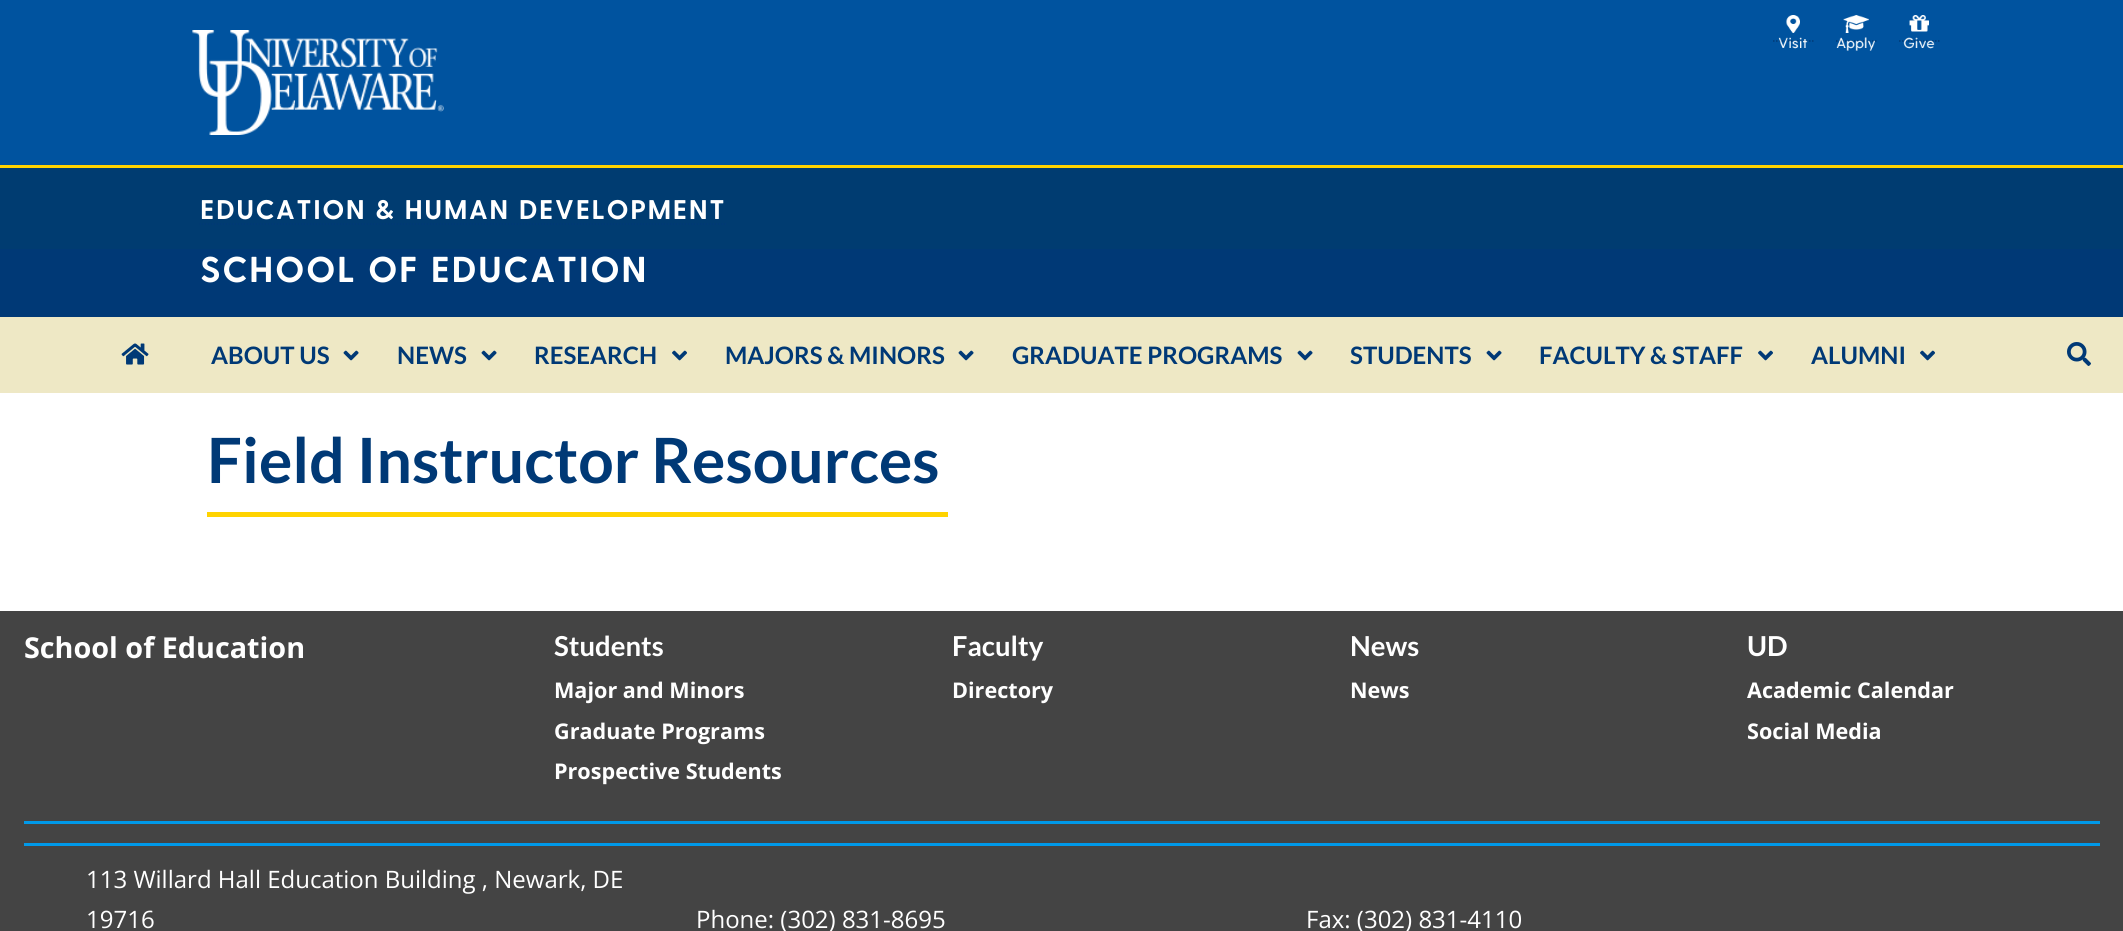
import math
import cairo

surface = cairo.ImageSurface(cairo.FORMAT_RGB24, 2123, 931)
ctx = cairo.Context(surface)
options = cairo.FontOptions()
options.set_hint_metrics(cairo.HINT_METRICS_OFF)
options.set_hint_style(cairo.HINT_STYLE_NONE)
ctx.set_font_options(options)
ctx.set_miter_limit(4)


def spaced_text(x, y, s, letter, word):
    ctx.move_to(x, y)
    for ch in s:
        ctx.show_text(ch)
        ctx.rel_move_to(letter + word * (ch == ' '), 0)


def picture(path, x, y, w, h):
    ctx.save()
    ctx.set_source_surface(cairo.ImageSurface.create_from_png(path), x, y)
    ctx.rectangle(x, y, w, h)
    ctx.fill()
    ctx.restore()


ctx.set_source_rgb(1, 1, 1)
ctx.paint()
ctx.set_source_rgb(0, 0.325, 0.624)
ctx.rectangle(0, 0, 2123, 165)
ctx.fill()
ctx.set_source_rgb(1, 0.827, 0)
ctx.rectangle(0, 165, 2123, 3)
ctx.fill()
picture("img1.png", 192, 30, 252, 105)
ctx.new_path()
ctx.move_to(1773, 41)
ctx.line_to(1813.5, 41)
ctx.set_source_rgb(0, 0.224, 0.463)
ctx.set_line_width(1.5)
ctx.set_dash([1.5, 1.5])
ctx.stroke()
picture("img2.png", 1778, 15, 30, 34)
ctx.new_path()
ctx.move_to(1836, 41)
ctx.line_to(1876.5, 41)
ctx.stroke()
picture("img3.png", 1836, 15, 39, 36)
ctx.new_path()
ctx.move_to(1899, 41)
ctx.line_to(1939.5, 41)
ctx.stroke()
picture("img4.png", 1903, 15, 32, 34)
ctx.set_source_rgb(0, 0.235, 0.443)
ctx.rectangle(0, 168, 2123, 81)
ctx.fill()
ctx.select_font_face("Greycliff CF", cairo.FONT_SLANT_NORMAL, cairo.FONT_WEIGHT_BOLD)
ctx.set_font_size(27)
ctx.set_source_rgb(1, 1, 1)
spaced_text(200, 219, "EDUCATION & HUMAN DEVELOPMENT", 1.5, 0)
ctx.new_path()
ctx.move_to(199.5, 224)
ctx.line_to(726, 224)
ctx.set_source_rgb(0, 0.224, 0.463)
ctx.stroke()
ctx.rectangle(0, 249, 2123, 68)
ctx.fill()
ctx.set_font_size(36)
ctx.set_source_rgb(1, 1, 1)
spaced_text(200, 282, "SCHOOL OF EDUCATION", 1.5, 0)
ctx.set_source_rgb(0.933, 0.91, 0.773)
ctx.rectangle(0, 317, 2123, 76)
ctx.fill()
picture("img5.png", 121, 343, 28, 22)
ctx.select_font_face("Lato", cairo.FONT_SLANT_NORMAL, cairo.FONT_WEIGHT_BOLD)
ctx.set_font_size(24)
ctx.set_source_rgb(0, 0.224, 0.463)
ctx.move_to(211, 364)
ctx.show_text("ABOUT US")
picture("img6.png", 343, 350, 16, 11)
ctx.move_to(397, 364)
ctx.show_text("NEWS")
picture("img6.png", 481, 350, 16, 11)
ctx.move_to(534, 364)
ctx.show_text("RESEARCH")
picture("img7.png", 672, 350, 15, 11)
ctx.move_to(725, 364)
ctx.show_text("MAJORS & MINORS")
picture("img6.png", 958, 350, 16, 11)
ctx.move_to(1012, 364)
ctx.show_text("GRADUATE PROGRAMS")
picture("img6.png", 1297, 350, 16, 11)
ctx.move_to(1350, 364)
ctx.show_text("STUDENTS")
picture("img6.png", 1486, 350, 16, 11)
ctx.move_to(1539, 364)
ctx.show_text("FACULTY & STAFF")
picture("img7.png", 1758, 350, 15, 11)
ctx.move_to(1811, 364)
ctx.show_text("ALUMNI")
picture("img7.png", 1920, 350, 15, 11)
picture("img8.png", 2067, 342, 24, 24)
ctx.set_source_rgb(1, 0.827, 0)
ctx.rectangle(207, 512, 741, 5)
ctx.fill()
ctx.set_font_size(62.4)
ctx.set_source_rgb(0, 0.224, 0.463)
ctx.move_to(207, 483)
ctx.show_text("Field Instructor Resources")
ctx.set_source_rgb(0.267, 0.267, 0.267)
ctx.rectangle(0, 611, 2123, 320)
ctx.fill()
ctx.select_font_face("Open Sans", cairo.FONT_SLANT_NORMAL, cairo.FONT_WEIGHT_BOLD)
ctx.set_font_size(28.75)
ctx.set_source_rgb(1, 1, 1)
ctx.move_to(24, 658)
ctx.show_text("School of Education")
ctx.select_font_face("Lato", cairo.FONT_SLANT_NORMAL, cairo.FONT_WEIGHT_BOLD)
ctx.set_font_size(27.5)
ctx.move_to(554, 656)
ctx.show_text("Students")
ctx.select_font_face("Open Sans", cairo.FONT_SLANT_NORMAL, cairo.FONT_WEIGHT_BOLD)
ctx.set_font_size(21.6)
ctx.move_to(554, 698)
ctx.show_text("Major and Minors")
ctx.move_to(554, 739)
ctx.show_text("Graduate Programs")
ctx.move_to(554, 779)
ctx.show_text("Prospective Students")
ctx.select_font_face("Lato", cairo.FONT_SLANT_NORMAL, cairo.FONT_WEIGHT_BOLD)
ctx.set_font_size(27.5)
ctx.move_to(952, 656)
ctx.show_text("Faculty")
ctx.select_font_face("Open Sans", cairo.FONT_SLANT_NORMAL, cairo.FONT_WEIGHT_BOLD)
ctx.set_font_size(21.6)
ctx.move_to(952, 698)
ctx.show_text("Directory")
ctx.select_font_face("Lato", cairo.FONT_SLANT_NORMAL, cairo.FONT_WEIGHT_BOLD)
ctx.set_font_size(27.5)
ctx.move_to(1350, 656)
ctx.show_text("News")
ctx.select_font_face("Open Sans", cairo.FONT_SLANT_NORMAL, cairo.FONT_WEIGHT_BOLD)
ctx.set_font_size(21.6)
ctx.move_to(1350, 698)
ctx.show_text("News")
ctx.select_font_face("Lato", cairo.FONT_SLANT_NORMAL, cairo.FONT_WEIGHT_BOLD)
ctx.set_font_size(27.5)
ctx.move_to(1747, 656)
ctx.show_text("UD")
ctx.select_font_face("Open Sans", cairo.FONT_SLANT_NORMAL, cairo.FONT_WEIGHT_BOLD)
ctx.set_font_size(21.6)
ctx.move_to(1747, 698)
ctx.show_text("Academic Calendar")
ctx.move_to(1747, 739)
ctx.show_text("Social Media")
ctx.set_source_rgb(0, 0.6, 0.914)
ctx.rectangle(24, 821, 2076, 3)
ctx.fill()
ctx.rectangle(24, 843, 2076, 3)
ctx.fill()
ctx.select_font_face("Open Sans")
ctx.set_font_size(24)
ctx.set_source_rgb(1, 1, 1)
ctx.move_to(86, 888)
ctx.show_text("113 Willard Hall Education Building , Newark, DE")
ctx.move_to(86, 928)
ctx.show_text("19716")
ctx.move_to(696, 928)
ctx.show_text("Phone: (302) 831-8695")
ctx.move_to(1306, 928)
ctx.show_text("Fax: (302) 831-4110")
surface.write_to_png("page.png")
